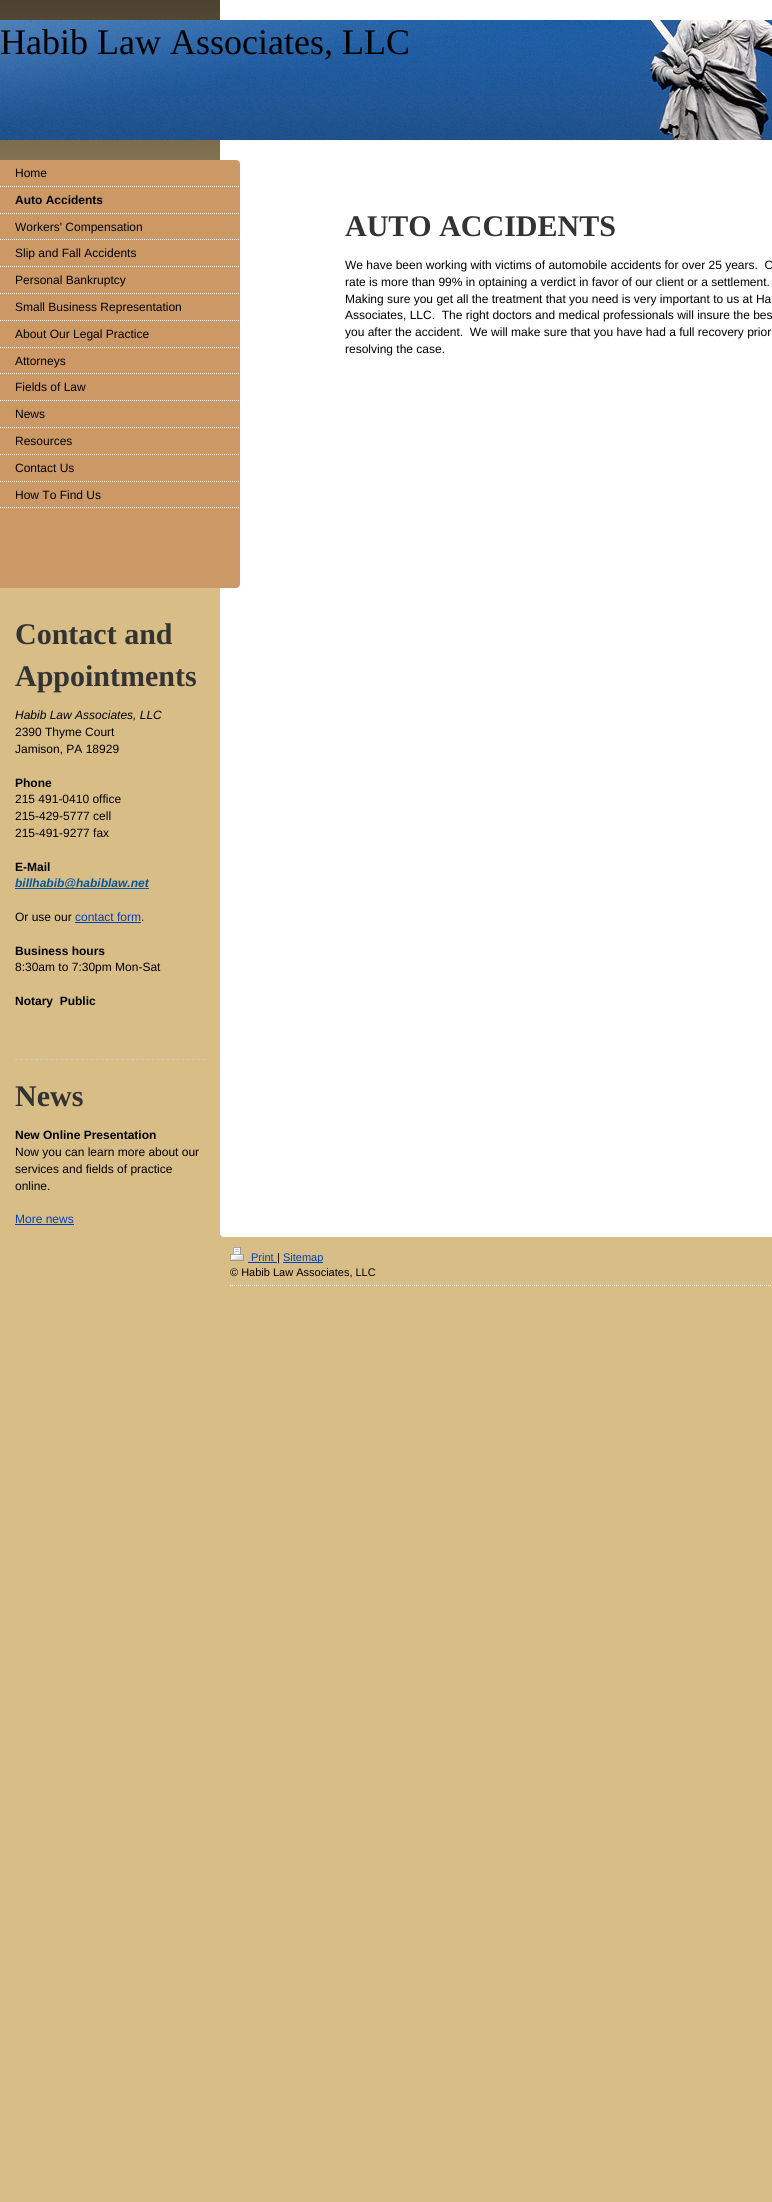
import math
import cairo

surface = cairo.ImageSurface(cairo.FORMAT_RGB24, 772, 2202)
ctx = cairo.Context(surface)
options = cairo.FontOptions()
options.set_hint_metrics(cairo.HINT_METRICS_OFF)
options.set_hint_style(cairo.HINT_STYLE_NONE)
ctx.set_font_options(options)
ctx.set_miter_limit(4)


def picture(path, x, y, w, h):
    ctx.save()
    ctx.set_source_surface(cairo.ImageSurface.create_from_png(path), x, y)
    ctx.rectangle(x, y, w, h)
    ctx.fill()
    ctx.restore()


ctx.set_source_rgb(0.851, 0.741, 0.529)
ctx.paint()
picture("img1.png", 0, 0, 220, 160)
ctx.set_source_rgb(1, 1, 1)
ctx.rectangle(220, 0, 552, 1233)
ctx.fill()
picture("img2.png", 0, 20, 772, 120)
ctx.select_font_face("Liberation Serif")
ctx.set_font_size(36)
ctx.set_source_rgb(0, 0, 0)
ctx.move_to(0, 54)
ctx.show_text("Habib Law Associates, LLC")
ctx.set_source_rgb(0.8, 0.6, 0.4)
ctx.rectangle(0, 160, 240, 428)
ctx.fill()
picture("img3.png", 236, 584, 4, 4)
picture("img4.png", 236, 160, 4, 4)
picture("img5.png", 0, 186, 239, 1)
ctx.select_font_face("Liberation Sans")
ctx.set_font_size(12)
ctx.set_source_rgb(0, 0, 0)
ctx.move_to(15, 177)
ctx.show_text("Home")
picture("img5.png", 0, 213, 239, 1)
ctx.select_font_face("Liberation Sans", cairo.FONT_SLANT_NORMAL, cairo.FONT_WEIGHT_BOLD)
ctx.move_to(15, 204)
ctx.show_text("Auto Accidents")
picture("img5.png", 0, 239, 239, 1)
ctx.select_font_face("Liberation Sans")
ctx.move_to(15, 231)
ctx.show_text("Workers' Compensation")
picture("img5.png", 0, 266, 239, 1)
ctx.move_to(15, 257)
ctx.show_text("Slip and Fall Accidents")
picture("img5.png", 0, 293, 239, 1)
ctx.move_to(15, 284)
ctx.show_text("Personal Bankruptcy")
picture("img5.png", 0, 320, 239, 1)
ctx.move_to(15, 311)
ctx.show_text("Small Business Representation")
picture("img5.png", 0, 347, 239, 1)
ctx.move_to(15, 338)
ctx.show_text("About Our Legal Practice")
picture("img5.png", 0, 373, 239, 1)
ctx.move_to(15, 365)
ctx.show_text("Attorneys")
picture("img5.png", 0, 400, 239, 1)
ctx.move_to(15, 391)
ctx.show_text("Fields of Law")
picture("img5.png", 0, 427, 239, 1)
ctx.move_to(15, 418)
ctx.show_text("News")
picture("img5.png", 0, 454, 239, 1)
ctx.move_to(15, 445)
ctx.show_text("Resources")
picture("img5.png", 0, 481, 239, 1)
ctx.move_to(15, 472)
ctx.show_text("Contact Us")
picture("img5.png", 0, 507, 239, 1)
ctx.move_to(15, 499)
ctx.show_text("How To Find Us")
ctx.select_font_face("Liberation Serif", cairo.FONT_SLANT_NORMAL, cairo.FONT_WEIGHT_BOLD)
ctx.set_font_size(30)
ctx.set_source_rgb(0.2, 0.2, 0.2)
ctx.move_to(15, 644)
ctx.show_text("Contact and")
ctx.move_to(15, 686)
ctx.show_text("Appointments")
ctx.select_font_face("Liberation Sans", cairo.FONT_SLANT_ITALIC)
ctx.set_font_size(12)
ctx.set_source_rgb(0, 0, 0)
ctx.move_to(15, 719)
ctx.show_text("Habib Law Associates, LLC")
ctx.select_font_face("Liberation Sans")
ctx.move_to(15, 736)
ctx.show_text("2390 Thyme Court")
ctx.move_to(15, 753)
ctx.show_text("Jamison, PA 18929")
ctx.select_font_face("Liberation Sans", cairo.FONT_SLANT_NORMAL, cairo.FONT_WEIGHT_BOLD)
ctx.move_to(15, 787)
ctx.show_text("Phone")
ctx.select_font_face("Liberation Sans")
ctx.move_to(15, 803)
ctx.show_text("215 491-0410 office")
ctx.move_to(15, 820)
ctx.show_text("215-429-5777 cell")
ctx.move_to(15, 837)
ctx.show_text("215-491-9277 fax")
ctx.select_font_face("Liberation Sans", cairo.FONT_SLANT_NORMAL, cairo.FONT_WEIGHT_BOLD)
ctx.move_to(15, 871)
ctx.show_text("E-Mail")
ctx.set_source_rgb(0.012, 0.341, 0.608)
ctx.rectangle(15, 888, 134, 1)
ctx.fill()
ctx.select_font_face("Liberation Sans", cairo.FONT_SLANT_ITALIC, cairo.FONT_WEIGHT_BOLD)
ctx.move_to(15, 887)
ctx.show_text("billhabib@habiblaw.net")
ctx.select_font_face("Liberation Sans")
ctx.set_source_rgb(0, 0, 0)
ctx.move_to(15, 921)
ctx.show_text("Or use our")
ctx.set_source_rgb(0, 0.251, 0.714)
ctx.move_to(75, 921)
ctx.show_text("contact form")
ctx.rectangle(75, 922, 66, 1)
ctx.fill()
ctx.set_source_rgb(0, 0, 0)
ctx.move_to(141, 921)
ctx.show_text(".")
ctx.select_font_face("Liberation Sans", cairo.FONT_SLANT_NORMAL, cairo.FONT_WEIGHT_BOLD)
ctx.move_to(15, 955)
ctx.show_text("Business hours")
ctx.select_font_face("Liberation Sans")
ctx.move_to(15, 971)
ctx.show_text("8:30am to 7:30pm Mon-Sat")
ctx.select_font_face("Liberation Sans", cairo.FONT_SLANT_NORMAL, cairo.FONT_WEIGHT_BOLD)
ctx.move_to(15, 1005)
ctx.show_text("Notary  Public")
ctx.new_path()
ctx.move_to(15, 1059.5)
ctx.line_to(205, 1059.5)
ctx.set_source_rgb(0.8, 0.8, 0.8)
ctx.set_line_width(1)
ctx.set_dash([3, 2.05])
ctx.stroke()
ctx.select_font_face("Liberation Serif", cairo.FONT_SLANT_NORMAL, cairo.FONT_WEIGHT_BOLD)
ctx.set_font_size(30)
ctx.set_source_rgb(0.2, 0.2, 0.2)
ctx.move_to(15, 1106)
ctx.show_text("News")
ctx.select_font_face("Liberation Sans", cairo.FONT_SLANT_NORMAL, cairo.FONT_WEIGHT_BOLD)
ctx.set_font_size(12)
ctx.set_source_rgb(0, 0, 0)
ctx.move_to(15, 1139)
ctx.show_text("New Online Presentation")
ctx.select_font_face("Liberation Sans")
ctx.move_to(15, 1156)
ctx.show_text("Now you can learn more about our")
ctx.move_to(15, 1173)
ctx.show_text("services and fields of practice")
ctx.move_to(15, 1190)
ctx.show_text("online.")
ctx.set_source_rgb(0, 0.251, 0.714)
ctx.move_to(15, 1223)
ctx.show_text("More news")
ctx.rectangle(15, 1224, 59, 1)
ctx.fill()
ctx.select_font_face("Liberation Serif", cairo.FONT_SLANT_NORMAL, cairo.FONT_WEIGHT_BOLD)
ctx.set_font_size(30)
ctx.set_source_rgb(0.2, 0.2, 0.2)
ctx.move_to(345, 236)
ctx.show_text("AUTO ACCIDENTS")
ctx.select_font_face("Liberation Sans")
ctx.set_font_size(12)
ctx.set_source_rgb(0, 0, 0)
ctx.move_to(345, 269)
ctx.show_text("We have been working with victims of automobile accidents for over 25 years.  O")
ctx.move_to(345, 286)
ctx.show_text("rate is more than 99% in optaining a verdict in favor of our client or a settlement.")
ctx.move_to(345, 303)
ctx.show_text("Making sure you get all the treatment that you need is very important to us at Ha")
ctx.move_to(345, 319)
ctx.show_text("Associates, LLC.  The right doctors and medical professionals will insure the bes")
ctx.move_to(345, 336)
ctx.show_text("you after the accident.  We will make sure that you have had a full recovery prior")
ctx.move_to(345, 353)
ctx.show_text("resolving the case.")
picture("img6.png", 220, 1233, 552, 4)
picture("img7.png", 230, 1285, 541, 1)
picture("img8.png", 230, 1247, 14, 14)
ctx.set_font_size(11)
ctx.set_source_rgb(0, 0.251, 0.714)
ctx.move_to(251, 1261)
ctx.show_text("Print")
ctx.rectangle(248, 1262, 29, 1)
ctx.fill()
ctx.set_source_rgb(0, 0, 0)
ctx.move_to(277, 1261)
ctx.show_text("|")
ctx.set_source_rgb(0, 0.251, 0.714)
ctx.rectangle(283, 1262, 40, 1)
ctx.fill()
ctx.move_to(283, 1261)
ctx.show_text("Sitemap")
ctx.set_source_rgb(0, 0, 0)
ctx.move_to(230, 1276)
ctx.show_text("© Habib Law Associates, LLC")
surface.write_to_png("page.png")
